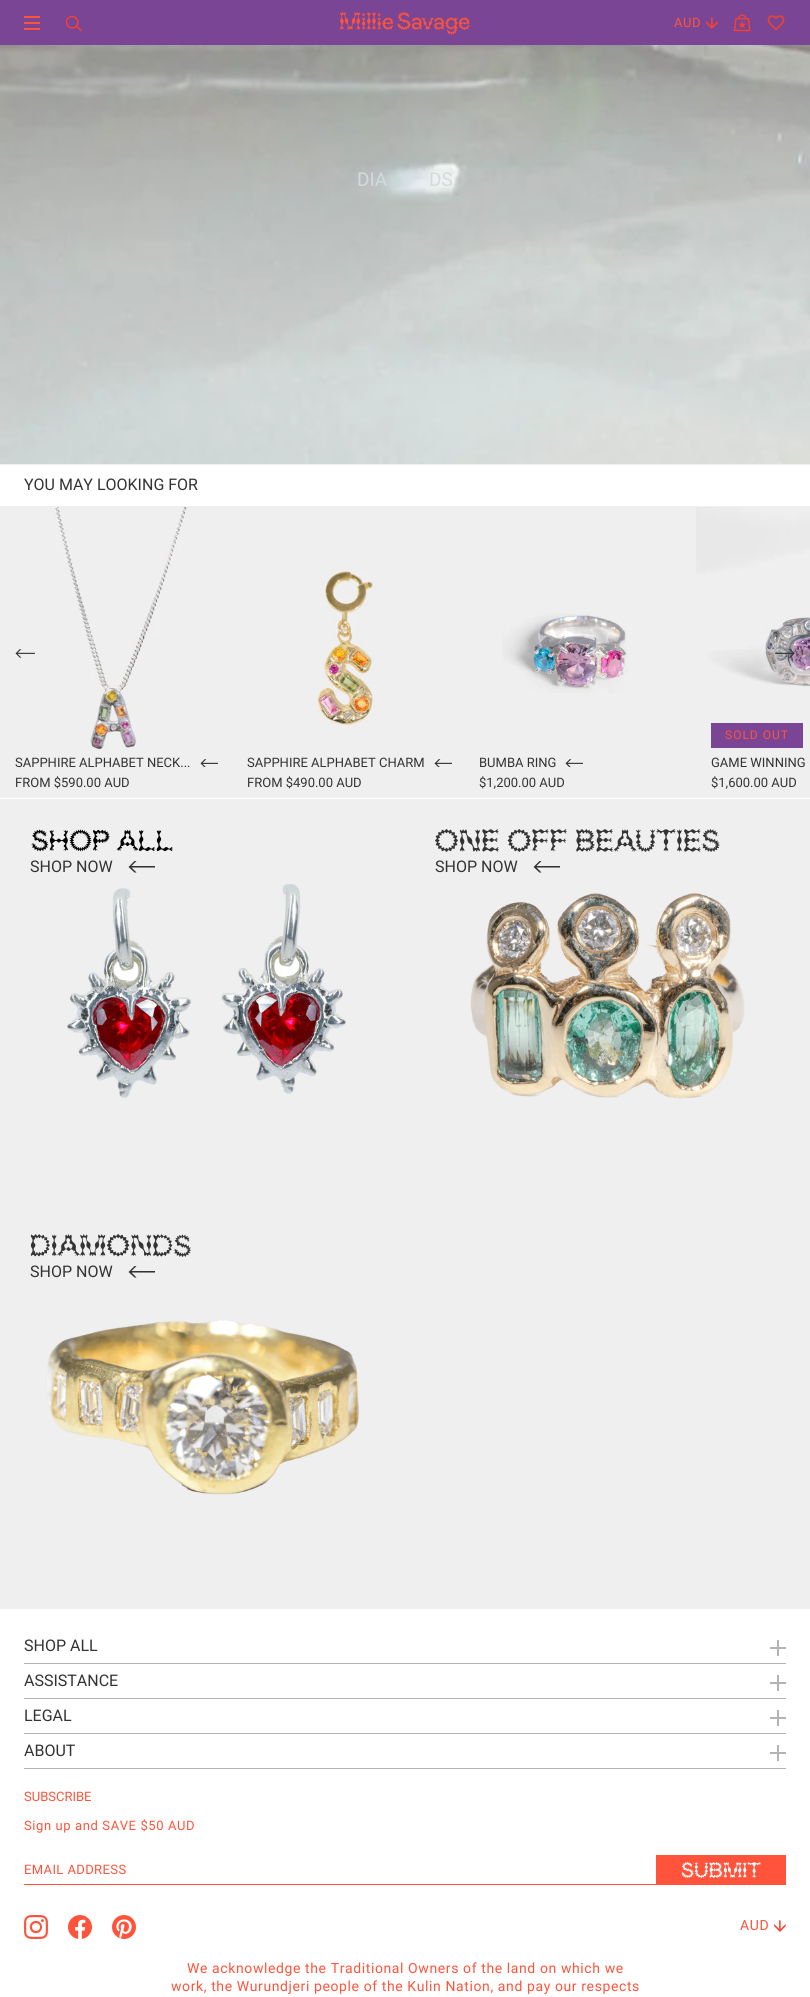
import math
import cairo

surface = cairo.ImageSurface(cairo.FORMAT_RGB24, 810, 1997)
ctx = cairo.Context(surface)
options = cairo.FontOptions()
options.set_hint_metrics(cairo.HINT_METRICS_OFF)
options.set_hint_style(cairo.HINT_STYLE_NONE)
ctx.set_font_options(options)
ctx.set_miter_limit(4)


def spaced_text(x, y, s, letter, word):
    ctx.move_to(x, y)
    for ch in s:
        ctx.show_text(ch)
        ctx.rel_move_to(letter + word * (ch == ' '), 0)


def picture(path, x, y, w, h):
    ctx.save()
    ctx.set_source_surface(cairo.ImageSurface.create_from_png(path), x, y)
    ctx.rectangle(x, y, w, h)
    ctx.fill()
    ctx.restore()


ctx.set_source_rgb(1, 1, 1)
ctx.paint()
ctx.set_source_rgb(0.478, 0.271, 0.58)
ctx.rectangle(0, 0, 810, 45)
ctx.fill()
ctx.set_source_rgb(1, 0.329, 0.231)
ctx.rectangle(24, 16, 16, 2)
ctx.fill()
ctx.rectangle(24, 22, 16, 2)
ctx.fill()
ctx.rectangle(24, 28, 16, 2)
ctx.fill()
picture("img1.png", 65, 15, 17, 17)
picture("img2.png", 340, 12, 130, 23)
ctx.select_font_face("Roboto")
ctx.set_font_size(13)
spaced_text(674, 27, "AUD", 0.6, 0)
picture("img3.png", 706, 17, 12, 12)
picture("img4.png", 733, 14, 18, 18)
picture("img5.png", 767, 15, 18, 16)
picture("img6.png", 0, 45, 810, 419)
ctx.set_font_size(19)
ctx.set_source_rgb(0.827, 0.855, 0.859)
ctx.move_to(357, 186)
ctx.show_text("DIA")
ctx.move_to(429, 186)
ctx.show_text("DS")
ctx.set_source_rgb(0.937, 0.937, 0.937)
ctx.rectangle(0, 464, 810, 1)
ctx.fill()
ctx.rectangle(0, 797, 810, 1)
ctx.fill()
ctx.rectangle(0, 506, 810, 1)
ctx.fill()
ctx.set_font_size(16)
ctx.set_source_rgb(0.2, 0.2, 0.2)
ctx.move_to(24, 490)
ctx.show_text("YOU MAY LOOKING FOR")
ctx.set_source_rgb(0.937, 0.937, 0.937)
ctx.rectangle(0, 507, 696, 290)
ctx.fill()
picture("img7.png", 15, 649, 20, 9)
picture("img13.png", 696, 507, 114, 180)
picture("img8.png", 775, 649, 20, 9)
picture("img9.png", 54, 507, 133, 244)
ctx.set_font_size(13)
ctx.set_source_rgb(0.2, 0.2, 0.2)
ctx.move_to(15, 767)
ctx.show_text("SAPPHIRE ALPHABET NECK...")
picture("img10.png", 200, 759, 18, 8)
ctx.move_to(15, 787)
ctx.show_text("FROM $590.00 AUD")
picture("img11.png", 317, 571, 58, 157)
ctx.move_to(247, 767)
ctx.show_text("SAPPHIRE ALPHABET CHARM")
picture("img10.png", 434, 759, 18, 8)
ctx.move_to(247, 787)
ctx.show_text("FROM $490.00 AUD")
picture("img12.png", 502, 613, 127, 80)
ctx.move_to(479, 767)
ctx.show_text("BUMBA RING")
picture("img10.png", 565, 759, 18, 8)
ctx.move_to(479, 787)
ctx.show_text("$1,200.00 AUD")
ctx.set_source_rgb(0.937, 0.937, 0.937)
ctx.rectangle(696, 687, 114, 110)
ctx.fill()
ctx.set_source_rgb(0.478, 0.271, 0.58)
ctx.rectangle(711, 723, 92, 25)
ctx.fill()
ctx.set_font_size(12)
ctx.set_source_rgb(1, 0.329, 0.231)
spaced_text(725, 739, "SOLD OUT", 1, 0)
ctx.set_font_size(13)
ctx.set_source_rgb(0.2, 0.2, 0.2)
ctx.move_to(711, 767)
ctx.show_text("GAME WINNING")
ctx.move_to(711, 787)
ctx.show_text("$1,600.00 AUD")
ctx.set_source_rgb(0.937, 0.937, 0.937)
ctx.rectangle(0, 799, 810, 810)
ctx.fill()
picture("img14.png", 31, 829, 142, 23)
ctx.set_font_size(16)
ctx.set_source_rgb(0.2, 0.2, 0.2)
ctx.move_to(30, 872)
ctx.show_text("SHOP NOW")
ctx.new_path()
ctx.move_to(128.5, 867)
ctx.line_to(134.5, 861)
ctx.line_to(136.5, 861)
ctx.line_to(131.5, 866)
ctx.line_to(155, 866)
ctx.line_to(155, 867.5)
ctx.line_to(131.5, 867.5)
ctx.line_to(136.5, 872.5)
ctx.line_to(134.5, 872.5)
ctx.close_path()
ctx.fill()
picture("img15.png", 67, 884, 279, 214)
picture("img16.png", 435, 829, 285, 23)
ctx.move_to(435, 872)
ctx.show_text("SHOP NOW")
ctx.new_path()
ctx.move_to(533.5, 867)
ctx.line_to(539.5, 861)
ctx.line_to(541.5, 861)
ctx.line_to(536.5, 866)
ctx.line_to(560, 866)
ctx.line_to(560, 867.5)
ctx.line_to(536.5, 867.5)
ctx.line_to(541.5, 872.5)
ctx.line_to(539.5, 872.5)
ctx.close_path()
ctx.fill()
picture("img17.png", 470, 893, 275, 206)
picture("img18.png", 30, 1234, 161, 23)
ctx.move_to(30, 1277)
ctx.show_text("SHOP NOW")
ctx.new_path()
ctx.move_to(128.5, 1272)
ctx.line_to(134.5, 1266)
ctx.line_to(136.5, 1266)
ctx.line_to(131.5, 1271)
ctx.line_to(155, 1271)
ctx.line_to(155, 1272.5)
ctx.line_to(131.5, 1272.5)
ctx.line_to(136.5, 1277.5)
ctx.line_to(134.5, 1277.5)
ctx.close_path()
ctx.fill()
picture("img19.png", 45, 1319, 314, 176)
ctx.set_source_rgb(0.702, 0.702, 0.702)
ctx.rectangle(24, 1663, 762, 1)
ctx.fill()
ctx.set_source_rgb(0.2, 0.2, 0.2)
ctx.move_to(24, 1651)
ctx.show_text("SHOP ALL")
ctx.set_source_rgb(0.702, 0.702, 0.702)
ctx.rectangle(770, 1647, 16, 2)
ctx.fill()
ctx.rectangle(777, 1640, 2, 16)
ctx.fill()
ctx.rectangle(24, 1698, 762, 1)
ctx.fill()
ctx.set_source_rgb(0.2, 0.2, 0.2)
ctx.move_to(24, 1686)
ctx.show_text("ASSISTANCE")
ctx.set_source_rgb(0.702, 0.702, 0.702)
ctx.rectangle(770, 1682, 16, 2)
ctx.fill()
ctx.rectangle(777, 1675, 2, 16)
ctx.fill()
ctx.rectangle(24, 1733, 762, 1)
ctx.fill()
ctx.set_source_rgb(0.2, 0.2, 0.2)
ctx.move_to(24, 1721)
ctx.show_text("LEGAL")
ctx.set_source_rgb(0.702, 0.702, 0.702)
ctx.rectangle(770, 1717, 16, 2)
ctx.fill()
ctx.rectangle(777, 1710, 2, 16)
ctx.fill()
ctx.rectangle(24, 1768, 762, 1)
ctx.fill()
ctx.set_source_rgb(0.2, 0.2, 0.2)
ctx.move_to(24, 1756)
ctx.show_text("ABOUT")
ctx.set_source_rgb(0.702, 0.702, 0.702)
ctx.rectangle(770, 1752, 16, 2)
ctx.fill()
ctx.rectangle(777, 1745, 2, 16)
ctx.fill()
ctx.set_font_size(13)
ctx.set_source_rgb(1, 0.329, 0.231)
ctx.move_to(24, 1801)
ctx.show_text("SUBSCRIBE")
spaced_text(24, 1830, "Sign up and SAVE $50 AUD", 0.6, 0)
ctx.rectangle(24, 1884, 632, 1)
ctx.fill()
spaced_text(24, 1874, "EMAIL ADDRESS", 0.4, 0)
ctx.rectangle(656, 1855, 130, 30)
ctx.fill()
picture("img20.png", 681, 1862, 80, 16)
picture("img21.png", 24, 1915, 24, 24)
picture("img22.png", 68, 1915, 24, 24)
picture("img23.png", 112, 1915, 24, 24)
ctx.set_font_size(14)
spaced_text(740, 1930, "AUD", 0.6, 0)
picture("img24.png", 774, 1920, 12, 12)
spaced_text(187, 1973, "We acknowledge the Traditional Owners of the land on which we", 0.6, 0)
spaced_text(171, 1991, "work, the Wurundjeri people of the Kulin Nation, and pay our respects", 0.6, 0)
surface.write_to_png("page.png")
